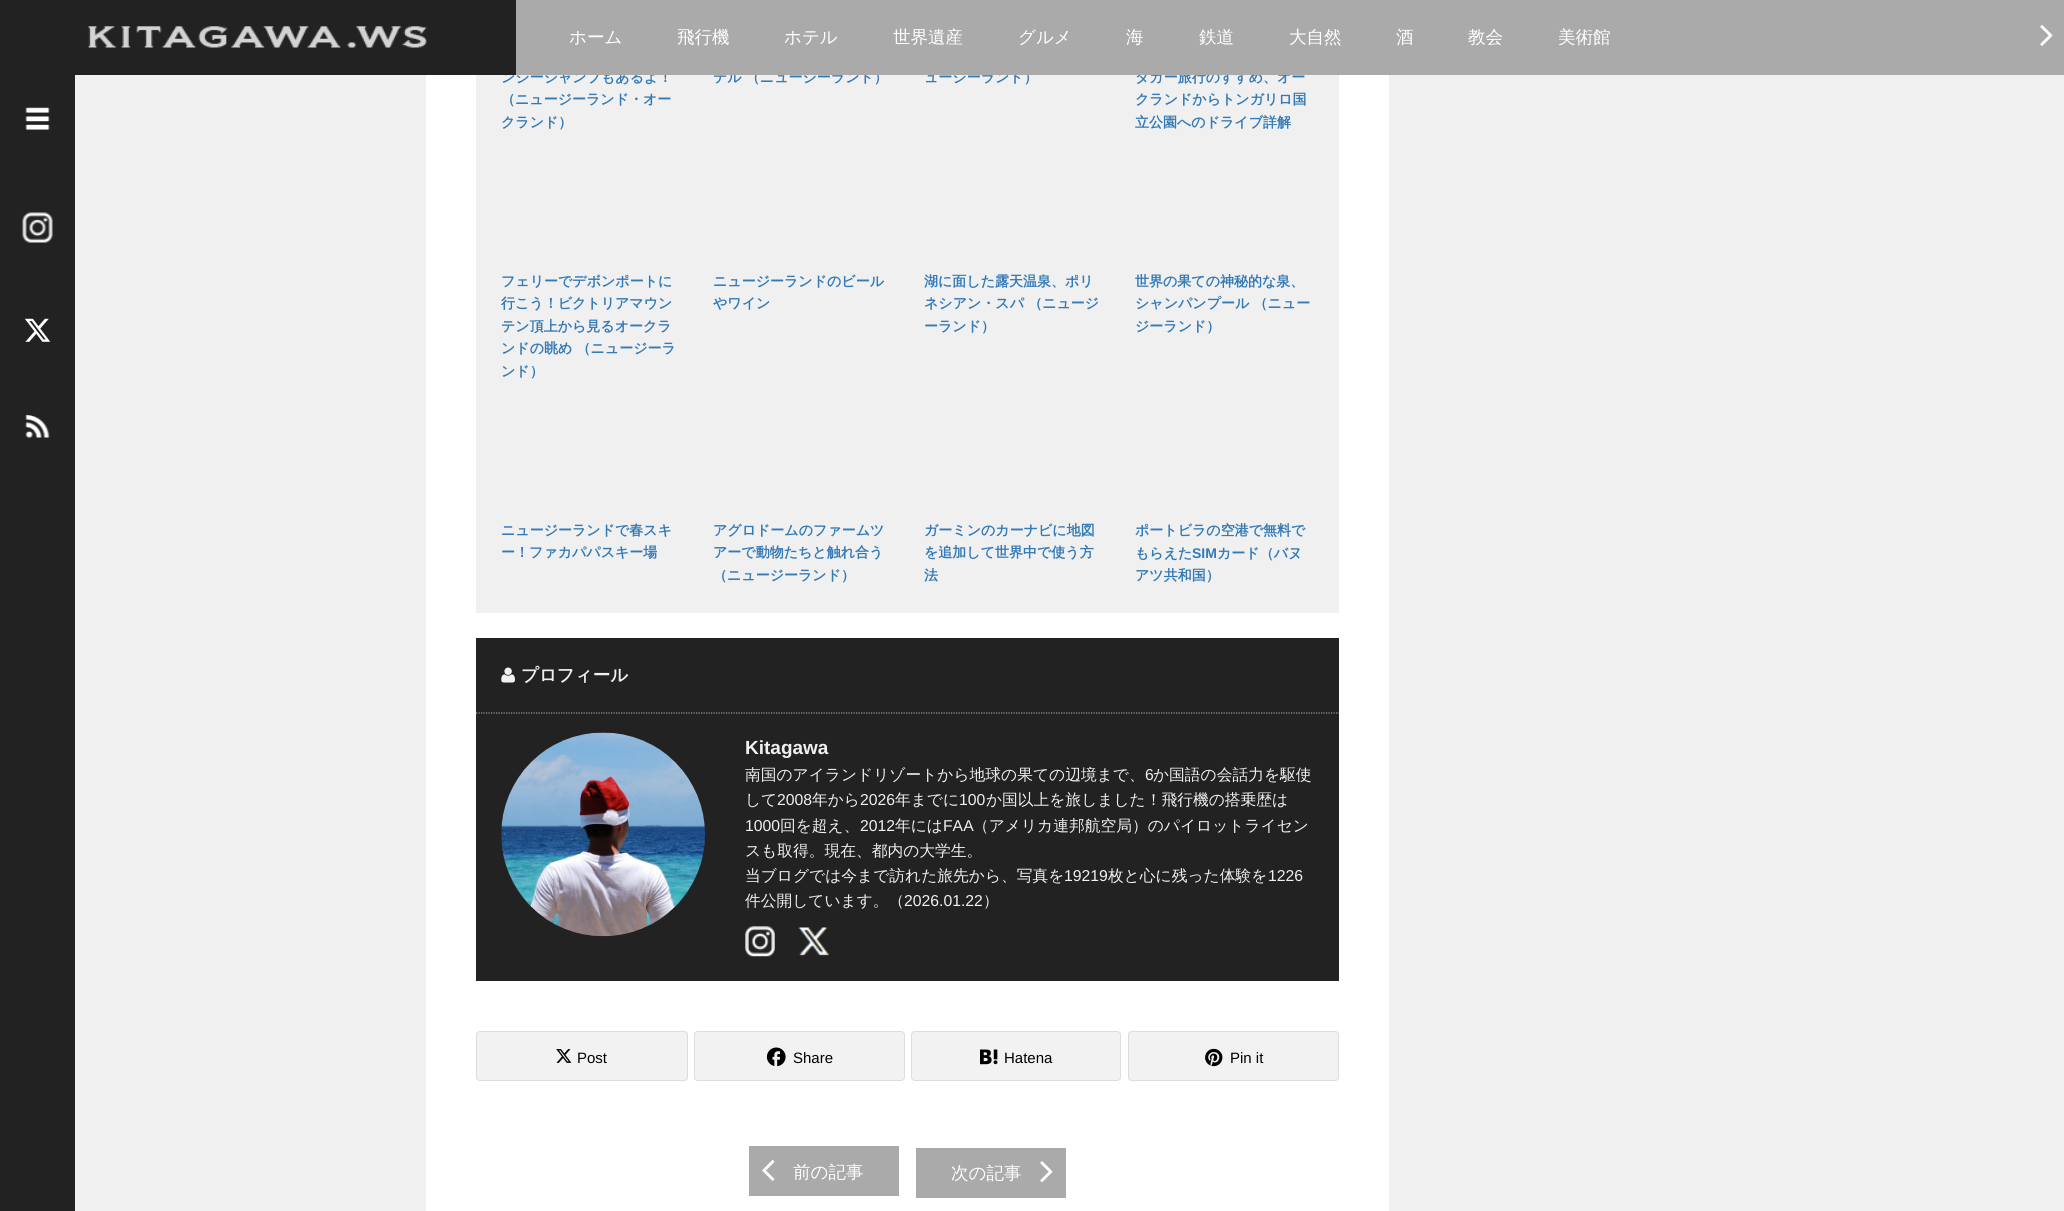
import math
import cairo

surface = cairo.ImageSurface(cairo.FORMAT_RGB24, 2064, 1211)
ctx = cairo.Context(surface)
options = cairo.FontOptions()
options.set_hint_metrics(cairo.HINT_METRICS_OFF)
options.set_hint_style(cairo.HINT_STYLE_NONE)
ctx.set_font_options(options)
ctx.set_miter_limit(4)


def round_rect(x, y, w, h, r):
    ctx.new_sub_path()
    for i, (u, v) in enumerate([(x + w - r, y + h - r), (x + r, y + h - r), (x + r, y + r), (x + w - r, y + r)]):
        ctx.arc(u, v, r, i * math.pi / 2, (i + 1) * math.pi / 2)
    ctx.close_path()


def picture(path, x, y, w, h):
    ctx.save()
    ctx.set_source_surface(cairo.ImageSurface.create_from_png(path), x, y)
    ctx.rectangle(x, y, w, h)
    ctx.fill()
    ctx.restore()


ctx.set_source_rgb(0.941, 0.941, 0.941)
ctx.paint()
ctx.set_source_rgb(1, 1, 1)
ctx.rectangle(426, 75, 963, 1136)
ctx.fill()
ctx.set_source_rgb(0.941, 0.941, 0.941)
ctx.rectangle(476, 75, 863, 538)
ctx.fill()
ctx.select_font_face("WenQuanYi Zen Hei", cairo.FONT_SLANT_NORMAL, cairo.FONT_WEIGHT_BOLD)
ctx.set_font_size(14)
ctx.set_source_rgb(0.2, 0.478, 0.718)
ctx.move_to(501, 82)
ctx.show_text("ンジージャンプもあるよ！")
ctx.set_source_rgb(0.133, 0.133, 0.133)
ctx.rectangle(0, 0, 516, 75)
ctx.fill()
picture("img1.png", 87, 26, 340, 22)
ctx.set_source_rgb(0.2, 0.478, 0.718)
ctx.move_to(713, 82)
ctx.show_text("テル （ニュージーランド）")
ctx.move_to(924, 82)
ctx.show_text("ュージーランド）")
ctx.move_to(1135, 82)
ctx.show_text("タカー旅行のすすめ、オー")
ctx.set_source_rgb(0.667, 0.667, 0.667)
ctx.rectangle(516, 0, 1548, 75)
ctx.fill()
ctx.select_font_face("WenQuanYi Zen Hei Medium")
ctx.set_font_size(17.5)
ctx.set_source_rgb(1, 1, 1)
ctx.move_to(569, 43)
ctx.show_text("ホーム")
ctx.move_to(677, 43)
ctx.show_text("飛行機")
ctx.move_to(784, 43)
ctx.show_text("ホテル")
ctx.move_to(893, 43)
ctx.show_text("世界遺産")
ctx.move_to(1018, 43)
ctx.show_text("グルメ")
ctx.move_to(1126, 43)
ctx.show_text("海")
ctx.move_to(1199, 43)
ctx.show_text("鉄道")
ctx.move_to(1289, 43)
ctx.show_text("大自然")
ctx.move_to(1396, 43)
ctx.show_text("酒")
ctx.move_to(1468, 43)
ctx.show_text("教会")
ctx.move_to(1558, 43)
ctx.show_text("美術館")
picture("img2.png", 2040, 25, 13, 21)
ctx.set_source_rgb(0.133, 0.133, 0.133)
ctx.rectangle(0, 75, 75, 1136)
ctx.fill()
picture("img3.png", 25, 107, 25, 23)
picture("img4.png", 22, 212, 31, 31)
picture("img5.png", 25, 318, 26, 24)
picture("img6.png", 25, 415, 25, 23)
ctx.select_font_face("WenQuanYi Zen Hei", cairo.FONT_SLANT_NORMAL, cairo.FONT_WEIGHT_BOLD)
ctx.set_font_size(14)
ctx.set_source_rgb(0.2, 0.478, 0.718)
ctx.move_to(501, 104)
ctx.show_text("（ニュージーランド・オー")
ctx.move_to(501, 127)
ctx.show_text("クランド）")
ctx.move_to(1135, 104)
ctx.show_text("クランドからトンガリロ国")
ctx.move_to(1135, 127)
ctx.show_text("立公園へのドライブ詳解")
ctx.move_to(501, 286)
ctx.show_text("フェリーでデボンポートに")
ctx.move_to(501, 308)
ctx.show_text("行こう！ビクトリアマウン")
ctx.move_to(501, 331)
ctx.show_text("テン頂上から見るオークラ")
ctx.move_to(501, 353)
ctx.show_text("ンドの眺め （ニュージーラ")
ctx.move_to(501, 376)
ctx.show_text("ンド）")
ctx.move_to(713, 286)
ctx.show_text("ニュージーランドのビール")
ctx.move_to(713, 308)
ctx.show_text("やワイン")
ctx.move_to(924, 286)
ctx.show_text("湖に面した露天温泉、ポリ")
ctx.move_to(924, 308)
ctx.show_text("ネシアン・スパ （ニュージ")
ctx.move_to(924, 331)
ctx.show_text("ーランド）")
ctx.move_to(1135, 286)
ctx.show_text("世界の果ての神秘的な泉、")
ctx.move_to(1135, 308)
ctx.show_text("シャンパンプール （ニュー")
ctx.move_to(1135, 331)
ctx.show_text("ジーランド）")
ctx.move_to(501, 535)
ctx.show_text("ニュージーランドで春スキ")
ctx.move_to(501, 557)
ctx.show_text("ー！ファカパパスキー場")
ctx.move_to(713, 535)
ctx.show_text("アグロドームのファームツ")
ctx.move_to(713, 557)
ctx.show_text("アーで動物たちと触れ合う")
ctx.move_to(713, 580)
ctx.show_text("（ニュージーランド）")
ctx.move_to(924, 535)
ctx.show_text("ガーミンのカーナビに地図")
ctx.move_to(924, 557)
ctx.show_text("を追加して世界中で使う方")
ctx.move_to(924, 580)
ctx.show_text("法")
ctx.move_to(1135, 535)
ctx.show_text("ポートビラの空港で無料で")
ctx.move_to(1135, 558)
ctx.show_text("もらえた")
ctx.select_font_face("Liberation Sans", cairo.FONT_SLANT_NORMAL, cairo.FONT_WEIGHT_BOLD)
ctx.move_to(1192, 558)
ctx.show_text("SIM")
ctx.select_font_face("WenQuanYi Zen Hei", cairo.FONT_SLANT_NORMAL, cairo.FONT_WEIGHT_BOLD)
ctx.move_to(1217, 558)
ctx.show_text("カード（バヌ")
ctx.move_to(1135, 580)
ctx.show_text("アツ共和国）")
ctx.set_source_rgb(0.133, 0.133, 0.133)
ctx.rectangle(476, 638, 863, 343)
ctx.fill()
ctx.new_path()
ctx.move_to(476, 713)
ctx.line_to(1339, 713)
ctx.set_source_rgb(0.6, 0.6, 0.6)
ctx.set_line_width(1.2)
ctx.set_dash([1.25, 1.25])
ctx.stroke()
picture("img7.png", 501, 667, 14, 16)
ctx.set_font_size(17.5)
ctx.set_source_rgb(0.941, 0.941, 0.941)
ctx.move_to(521, 681)
ctx.show_text("プロフィール")
picture("img8.png", 501, 732, 204, 205)
ctx.select_font_face("Liberation Sans", cairo.FONT_SLANT_NORMAL, cairo.FONT_WEIGHT_BOLD)
ctx.set_font_size(19)
ctx.move_to(745, 754)
ctx.show_text("Kitagawa")
ctx.select_font_face("WenQuanYi Zen Hei Medium")
ctx.set_font_size(15.75)
ctx.move_to(745, 780)
ctx.show_text("南国のアイランドリゾートから地球の果ての辺境まで、")
ctx.select_font_face("Liberation Sans")
ctx.move_to(1145, 780)
ctx.show_text("6")
ctx.select_font_face("WenQuanYi Zen Hei Medium")
ctx.move_to(1153, 780)
ctx.show_text("か国語の会話力を駆使")
ctx.move_to(745, 805)
ctx.show_text("して")
ctx.select_font_face("Liberation Sans")
ctx.move_to(777, 805)
ctx.show_text("2008")
ctx.select_font_face("WenQuanYi Zen Hei Medium")
ctx.move_to(812, 805)
ctx.show_text("年から")
ctx.select_font_face("Liberation Sans")
ctx.move_to(860, 805)
ctx.show_text("2026")
ctx.select_font_face("WenQuanYi Zen Hei Medium")
ctx.move_to(895, 805)
ctx.show_text("年までに")
ctx.select_font_face("Liberation Sans")
ctx.move_to(959, 805)
ctx.show_text("100")
ctx.select_font_face("WenQuanYi Zen Hei Medium")
ctx.move_to(986, 805)
ctx.show_text("か国以上を旅しました！飛行機の搭乗歴は")
ctx.select_font_face("Liberation Sans")
ctx.move_to(745, 831)
ctx.show_text("1000")
ctx.select_font_face("WenQuanYi Zen Hei Medium")
ctx.move_to(780, 831)
ctx.show_text("回を超え、")
ctx.select_font_face("Liberation Sans")
ctx.move_to(860, 831)
ctx.show_text("2012")
ctx.select_font_face("WenQuanYi Zen Hei Medium")
ctx.move_to(895, 831)
ctx.show_text("年には")
ctx.select_font_face("Liberation Sans")
ctx.move_to(943, 831)
ctx.show_text("FAA")
ctx.select_font_face("WenQuanYi Zen Hei Medium")
ctx.move_to(973, 831)
ctx.show_text("（アメリカ連邦航空局）のパイロットライセン")
ctx.move_to(745, 856)
ctx.show_text("スも取得。現在、都内の大学生。")
ctx.move_to(745, 881)
ctx.show_text("当ブログでは今まで訪れた旅先から、写真を")
ctx.select_font_face("Liberation Sans")
ctx.move_to(1064, 881)
ctx.show_text("19219")
ctx.select_font_face("WenQuanYi Zen Hei Medium")
ctx.move_to(1108, 881)
ctx.show_text("枚と心に残った体験を")
ctx.select_font_face("Liberation Sans")
ctx.move_to(1268, 881)
ctx.show_text("1226")
ctx.select_font_face("WenQuanYi Zen Hei Medium")
ctx.move_to(745, 906)
ctx.show_text("件公開しています。（")
ctx.select_font_face("Liberation Sans")
ctx.move_to(904, 906)
ctx.show_text("2026.01.22")
ctx.select_font_face("WenQuanYi Zen Hei Medium")
ctx.move_to(983, 906)
ctx.show_text("）")
picture("img9.png", 745, 926, 30, 31)
picture("img10.png", 798, 927, 31, 29)
ctx.set_source_rgb(0.949, 0.949, 0.949)
round_rect(476.5, 1031.5, 211, 49, 3.5)
ctx.fill_preserve()
ctx.set_source_rgb(0.867, 0.867, 0.867)
ctx.set_line_width(1)
ctx.set_dash([])
ctx.stroke()
picture("img11.png", 556, 1049, 16, 14)
ctx.select_font_face("Liberation Sans")
ctx.set_font_size(15)
ctx.set_source_rgb(0, 0, 0)
ctx.move_to(577, 1063)
ctx.show_text("Post")
ctx.set_source_rgb(0.949, 0.949, 0.949)
round_rect(694.5, 1031.5, 210, 49, 3.5)
ctx.fill_preserve()
ctx.set_source_rgb(0.867, 0.867, 0.867)
ctx.stroke()
picture("img12.png", 766, 1047, 20, 20)
ctx.set_source_rgb(0, 0, 0)
ctx.move_to(793, 1063)
ctx.show_text("Share")
ctx.set_source_rgb(0.949, 0.949, 0.949)
round_rect(911.5, 1031.5, 209, 49, 3.5)
ctx.fill_preserve()
ctx.set_source_rgb(0.867, 0.867, 0.867)
ctx.stroke()
picture("img13.png", 980, 1049, 18, 16)
ctx.set_source_rgb(0, 0, 0)
ctx.move_to(1004, 1063)
ctx.show_text("Hatena")
ctx.set_source_rgb(0.949, 0.949, 0.949)
round_rect(1128.5, 1031.5, 210, 49, 3.5)
ctx.fill_preserve()
ctx.set_source_rgb(0.867, 0.867, 0.867)
ctx.stroke()
picture("img14.png", 1205, 1048, 18, 19)
ctx.set_source_rgb(0, 0, 0)
ctx.move_to(1230, 1063)
ctx.show_text("Pin it")
ctx.set_source_rgb(0.667, 0.667, 0.667)
ctx.rectangle(749, 1146, 150, 50)
ctx.fill()
picture("img15.png", 762, 1160, 13, 21)
ctx.select_font_face("WenQuanYi Zen Hei Medium")
ctx.set_font_size(17.5)
ctx.set_source_rgb(1, 1, 1)
ctx.move_to(793, 1178)
ctx.show_text("前の記事")
ctx.set_source_rgb(0.667, 0.667, 0.667)
ctx.rectangle(916, 1148, 150, 50)
ctx.fill()
ctx.set_source_rgb(1, 1, 1)
ctx.move_to(951, 1179)
ctx.show_text("次の記事")
picture("img16.png", 1040, 1161, 13, 21)
surface.write_to_png("page.png")
